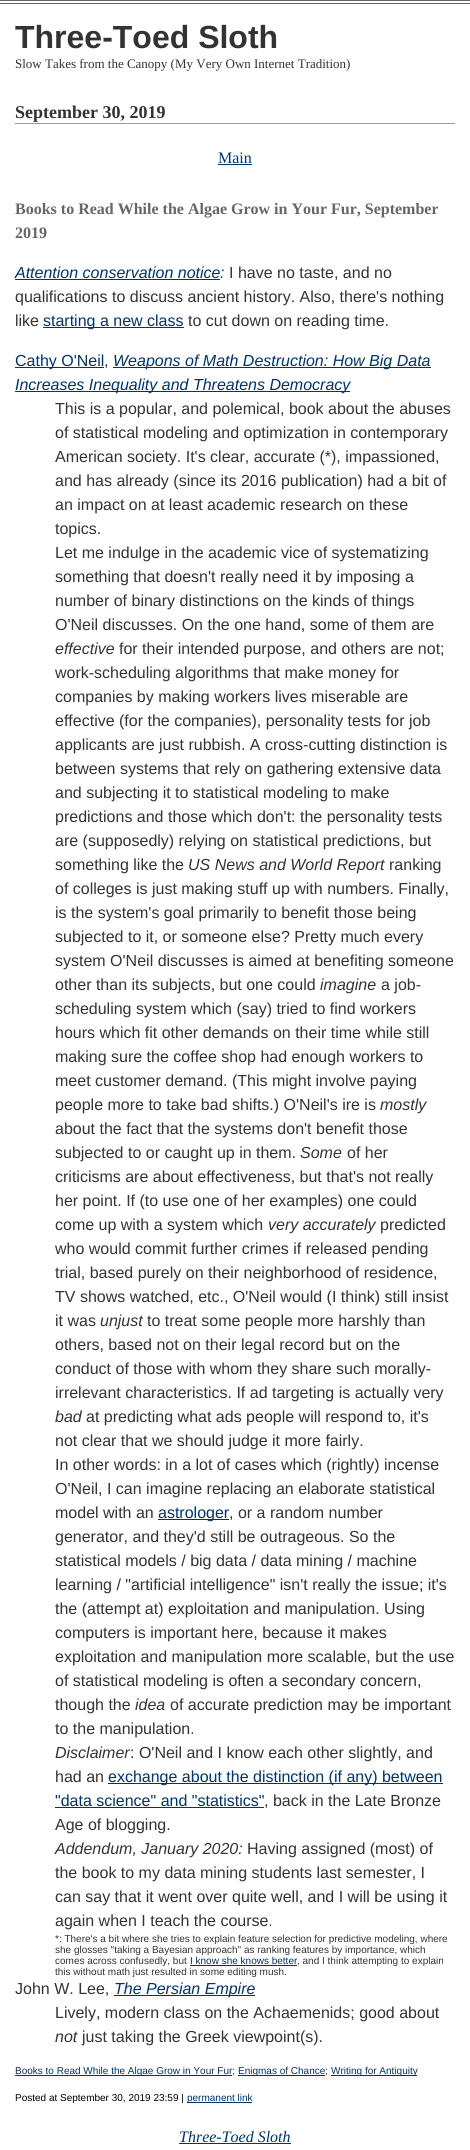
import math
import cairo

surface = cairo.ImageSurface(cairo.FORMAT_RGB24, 470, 2150)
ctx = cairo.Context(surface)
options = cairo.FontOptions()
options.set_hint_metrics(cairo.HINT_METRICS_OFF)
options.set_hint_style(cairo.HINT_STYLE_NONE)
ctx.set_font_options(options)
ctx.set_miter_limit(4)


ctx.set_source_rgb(1, 1, 1)
ctx.paint()
ctx.set_source_rgb(0.4, 0.4, 0.4)
ctx.rectangle(0, 0, 470, 1)
ctx.fill()
ctx.rectangle(0, 3, 470, 1)
ctx.fill()
ctx.select_font_face("Liberation Sans", cairo.FONT_SLANT_NORMAL, cairo.FONT_WEIGHT_BOLD)
ctx.set_font_size(32)
ctx.set_source_rgb(0.2, 0.2, 0.2)
ctx.move_to(15, 48)
ctx.show_text("Three-Toed Sloth")
ctx.select_font_face("Liberation Serif")
ctx.set_font_size(13)
ctx.move_to(15, 68)
ctx.show_text("Slow Takes from the Canopy (My Very Own Internet Tradition)")
ctx.set_source_rgb(0.6, 0.6, 0.6)
ctx.rectangle(15, 123, 440, 1)
ctx.fill()
ctx.select_font_face("Liberation Serif", cairo.FONT_SLANT_NORMAL, cairo.FONT_WEIGHT_BOLD)
ctx.set_font_size(18)
ctx.set_source_rgb(0.2, 0.2, 0.2)
ctx.move_to(15, 118)
ctx.show_text("September 30, 2019")
ctx.select_font_face("Liberation Serif")
ctx.set_font_size(16)
ctx.set_source_rgb(0, 0.2, 0.4)
ctx.move_to(218, 163)
ctx.show_text("Main")
ctx.rectangle(218, 164, 34, 1)
ctx.fill()
ctx.select_font_face("Liberation Serif", cairo.FONT_SLANT_NORMAL, cairo.FONT_WEIGHT_BOLD)
ctx.set_source_rgb(0.4, 0.4, 0.4)
ctx.move_to(15, 214)
ctx.show_text("Books to Read While the Algae Grow in Your Fur, September")
ctx.move_to(15, 238)
ctx.show_text("2019")
ctx.select_font_face("Liberation Sans", cairo.FONT_SLANT_ITALIC)
ctx.set_source_rgb(0, 0.2, 0.4)
ctx.move_to(15, 278)
ctx.show_text("Attention conservation notice")
ctx.set_source_rgb(0.2, 0.2, 0.2)
ctx.move_to(220, 278)
ctx.show_text(":")
ctx.set_source_rgb(0, 0.2, 0.4)
ctx.rectangle(15, 279, 205, 1)
ctx.fill()
ctx.select_font_face("Liberation Sans")
ctx.set_source_rgb(0.2, 0.2, 0.2)
ctx.move_to(229, 278)
ctx.show_text("I have no taste, and no")
ctx.move_to(15, 302)
ctx.show_text("qualifications to discuss ancient history. Also, there's nothing")
ctx.move_to(15, 326)
ctx.show_text("like")
ctx.set_source_rgb(0, 0.2, 0.4)
ctx.rectangle(43, 327, 141, 1)
ctx.fill()
ctx.move_to(43, 326)
ctx.show_text("starting a new class")
ctx.set_source_rgb(0.2, 0.2, 0.2)
ctx.move_to(188, 326)
ctx.show_text("to cut down on reading time.")
ctx.set_source_rgb(0, 0.2, 0.4)
ctx.rectangle(15, 367, 89, 1)
ctx.fill()
ctx.move_to(15, 366)
ctx.show_text("Cathy O'Neil")
ctx.set_source_rgb(0.2, 0.2, 0.2)
ctx.move_to(104, 366)
ctx.show_text(",")
ctx.set_source_rgb(0, 0.2, 0.4)
ctx.rectangle(113, 367, 318, 1)
ctx.fill()
ctx.select_font_face("Liberation Sans", cairo.FONT_SLANT_ITALIC)
ctx.move_to(113, 366)
ctx.show_text("Weapons of Math Destruction: How Big Data")
ctx.rectangle(15, 391, 335, 1)
ctx.fill()
ctx.move_to(15, 390)
ctx.show_text("Increases Inequality and Threatens Democracy")
ctx.select_font_face("Liberation Sans")
ctx.set_source_rgb(0.2, 0.2, 0.2)
ctx.move_to(55, 414)
ctx.show_text("This is a popular, and polemical, book about the abuses")
ctx.move_to(55, 438)
ctx.show_text("of statistical modeling and optimization in contemporary")
ctx.move_to(55, 462)
ctx.show_text("American society. It's clear, accurate (*), impassioned,")
ctx.move_to(55, 486)
ctx.show_text("and has already (since its 2016 publication) had a bit of")
ctx.move_to(55, 510)
ctx.show_text("an impact on at least academic research on these")
ctx.move_to(55, 534)
ctx.show_text("topics.")
ctx.move_to(55, 558)
ctx.show_text("Let me indulge in the academic vice of systematizing")
ctx.move_to(55, 582)
ctx.show_text("something that doesn't really need it by imposing a")
ctx.move_to(55, 606)
ctx.show_text("number of binary distinctions on the kinds of things")
ctx.move_to(55, 630)
ctx.show_text("O'Neil discusses. On the one hand, some of them are")
ctx.select_font_face("Liberation Sans", cairo.FONT_SLANT_ITALIC)
ctx.move_to(55, 654)
ctx.show_text("effective")
ctx.select_font_face("Liberation Sans")
ctx.move_to(119, 654)
ctx.show_text("for their intended purpose, and others are not;")
ctx.move_to(55, 678)
ctx.show_text("work-scheduling algorithms that make money for")
ctx.move_to(55, 702)
ctx.show_text("companies by making workers lives miserable are")
ctx.move_to(55, 726)
ctx.show_text("effective (for the companies), personality tests for job")
ctx.move_to(55, 750)
ctx.show_text("applicants are just rubbish. A cross-cutting distinction is")
ctx.move_to(55, 774)
ctx.show_text("between systems that rely on gathering extensive data")
ctx.move_to(55, 798)
ctx.show_text("and subjecting it to statistical modeling to make")
ctx.move_to(55, 822)
ctx.show_text("predictions and those which don't: the personality tests")
ctx.move_to(55, 846)
ctx.show_text("are (supposedly) relying on statistical predictions, but")
ctx.move_to(55, 870)
ctx.show_text("something like the")
ctx.select_font_face("Liberation Sans", cairo.FONT_SLANT_ITALIC)
ctx.move_to(188, 870)
ctx.show_text("US News and World Report")
ctx.select_font_face("Liberation Sans")
ctx.move_to(389, 870)
ctx.show_text("ranking")
ctx.move_to(55, 894)
ctx.show_text("of colleges is just making stuff up with numbers. Finally,")
ctx.move_to(55, 918)
ctx.show_text("is the system's goal primarily to benefit those being")
ctx.move_to(55, 942)
ctx.show_text("subjected to it, or someone else? Pretty much every")
ctx.move_to(55, 966)
ctx.show_text("system O'Neil discusses is aimed at benefiting someone")
ctx.move_to(55, 990)
ctx.show_text("other than its subjects, but one could")
ctx.select_font_face("Liberation Sans", cairo.FONT_SLANT_ITALIC)
ctx.move_to(320, 990)
ctx.show_text("imagine")
ctx.select_font_face("Liberation Sans")
ctx.move_to(381, 990)
ctx.show_text("a job-")
ctx.move_to(55, 1014)
ctx.show_text("scheduling system which (say) tried to find workers")
ctx.move_to(55, 1038)
ctx.show_text("hours which fit other demands on their time while still")
ctx.move_to(55, 1062)
ctx.show_text("making sure the coffee shop had enough workers to")
ctx.move_to(55, 1086)
ctx.show_text("meet customer demand. (This might involve paying")
ctx.move_to(55, 1110)
ctx.show_text("people more to take bad shifts.) O'Neil's ire is")
ctx.select_font_face("Liberation Sans", cairo.FONT_SLANT_ITALIC)
ctx.move_to(380, 1110)
ctx.show_text("mostly")
ctx.select_font_face("Liberation Sans")
ctx.move_to(55, 1134)
ctx.show_text("about the fact that the systems don't benefit those")
ctx.move_to(55, 1158)
ctx.show_text("subjected to or caught up in them.")
ctx.select_font_face("Liberation Sans", cairo.FONT_SLANT_ITALIC)
ctx.move_to(300, 1158)
ctx.show_text("Some")
ctx.select_font_face("Liberation Sans")
ctx.move_to(347, 1158)
ctx.show_text("of her")
ctx.move_to(55, 1182)
ctx.show_text("criticisms are about effectiveness, but that's not really")
ctx.move_to(55, 1206)
ctx.show_text("her point. If (to use one of her examples) one could")
ctx.move_to(55, 1230)
ctx.show_text("come up with a system which")
ctx.select_font_face("Liberation Sans", cairo.FONT_SLANT_ITALIC)
ctx.move_to(268, 1230)
ctx.show_text("very accurately")
ctx.select_font_face("Liberation Sans")
ctx.move_to(380, 1230)
ctx.show_text("predicted")
ctx.move_to(55, 1254)
ctx.show_text("who would commit further crimes if released pending")
ctx.move_to(55, 1278)
ctx.show_text("trial, based purely on their neighborhood of residence,")
ctx.move_to(55, 1302)
ctx.show_text("TV shows watched, etc., O'Neil would (I think) still insist")
ctx.move_to(55, 1326)
ctx.show_text("it was")
ctx.select_font_face("Liberation Sans", cairo.FONT_SLANT_ITALIC)
ctx.move_to(100, 1326)
ctx.show_text("unjust")
ctx.select_font_face("Liberation Sans")
ctx.move_to(147, 1326)
ctx.show_text("to treat some people more harshly than")
ctx.move_to(55, 1350)
ctx.show_text("others, based not on their legal record but on the")
ctx.move_to(55, 1374)
ctx.show_text("conduct of those with whom they share such morally-")
ctx.move_to(55, 1398)
ctx.show_text("irrelevant characteristics. If ad targeting is actually very")
ctx.select_font_face("Liberation Sans", cairo.FONT_SLANT_ITALIC)
ctx.move_to(55, 1422)
ctx.show_text("bad")
ctx.select_font_face("Liberation Sans")
ctx.move_to(86, 1422)
ctx.show_text("at predicting what ads people will respond to, it's")
ctx.move_to(55, 1446)
ctx.show_text("not clear that we should judge it more fairly.")
ctx.move_to(55, 1470)
ctx.show_text("In other words: in a lot of cases which (rightly) incense")
ctx.move_to(55, 1494)
ctx.show_text("O'Neil, I can imagine replacing an elaborate statistical")
ctx.move_to(55, 1518)
ctx.show_text("model with an")
ctx.set_source_rgb(0, 0.2, 0.4)
ctx.rectangle(158, 1519, 71, 1)
ctx.fill()
ctx.move_to(158, 1518)
ctx.show_text("astrologer")
ctx.set_source_rgb(0.2, 0.2, 0.2)
ctx.move_to(229, 1518)
ctx.show_text(", or a random number")
ctx.move_to(55, 1542)
ctx.show_text("generator, and they'd still be outrageous. So the")
ctx.move_to(55, 1566)
ctx.show_text("statistical models / big data / data mining / machine")
ctx.move_to(55, 1590)
ctx.show_text("learning / \"artificial intelligence\" isn't really the issue; it's")
ctx.move_to(55, 1614)
ctx.show_text("the (attempt at) exploitation and manipulation. Using")
ctx.move_to(55, 1638)
ctx.show_text("computers is important here, because it makes")
ctx.move_to(55, 1662)
ctx.show_text("exploitation and manipulation more scalable, but the use")
ctx.move_to(55, 1686)
ctx.show_text("of statistical modeling is often a secondary concern,")
ctx.move_to(55, 1710)
ctx.show_text("though the")
ctx.select_font_face("Liberation Sans", cairo.FONT_SLANT_ITALIC)
ctx.move_to(135, 1710)
ctx.show_text("idea")
ctx.select_font_face("Liberation Sans")
ctx.move_to(170, 1710)
ctx.show_text("of accurate prediction may be important")
ctx.move_to(55, 1734)
ctx.show_text("to the manipulation.")
ctx.select_font_face("Liberation Sans", cairo.FONT_SLANT_ITALIC)
ctx.move_to(55, 1758)
ctx.show_text("Disclaimer")
ctx.select_font_face("Liberation Sans")
ctx.move_to(130, 1758)
ctx.show_text(": O'Neil and I know each other slightly, and")
ctx.move_to(55, 1782)
ctx.show_text("had an")
ctx.set_source_rgb(0, 0.2, 0.4)
ctx.rectangle(108, 1783, 335, 1)
ctx.fill()
ctx.move_to(108, 1782)
ctx.show_text("exchange about the distinction (if any) between")
ctx.move_to(55, 1806)
ctx.show_text("\"data science\" and \"statistics\"")
ctx.rectangle(55, 1807, 209, 1)
ctx.fill()
ctx.set_source_rgb(0.2, 0.2, 0.2)
ctx.move_to(264, 1806)
ctx.show_text(", back in the Late Bronze")
ctx.move_to(55, 1830)
ctx.show_text("Age of blogging.")
ctx.select_font_face("Liberation Sans", cairo.FONT_SLANT_ITALIC)
ctx.move_to(55, 1854)
ctx.show_text("Addendum, January 2020:")
ctx.select_font_face("Liberation Sans")
ctx.move_to(247, 1854)
ctx.show_text("Having assigned (most) of")
ctx.move_to(55, 1878)
ctx.show_text("the book to my data mining students last semester, I")
ctx.move_to(55, 1902)
ctx.show_text("can say that it went over quite well, and I will be using it")
ctx.move_to(55, 1926)
ctx.show_text("again when I teach the course.")
ctx.set_font_size(10)
ctx.move_to(55, 1942)
ctx.show_text("*: There's a bit where she tries to explain feature selection for predictive modeling, where")
ctx.move_to(55, 1953)
ctx.show_text("she glosses \"taking a Bayesian approach\" as ranking features by importance, which")
ctx.move_to(55, 1964)
ctx.show_text("comes across confusedly, but")
ctx.set_source_rgb(0, 0.2, 0.4)
ctx.move_to(190, 1964)
ctx.show_text("I know she knows better")
ctx.set_source_rgb(0.2, 0.2, 0.2)
ctx.move_to(297, 1964)
ctx.show_text(", and I think attempting to explain")
ctx.set_source_rgb(0, 0.2, 0.4)
ctx.rectangle(190, 1965, 107, 1)
ctx.fill()
ctx.set_source_rgb(0.2, 0.2, 0.2)
ctx.move_to(55, 1975)
ctx.show_text("this without math just resulted in some editing mush.")
ctx.set_font_size(16)
ctx.move_to(15, 1994)
ctx.show_text("John W. Lee,")
ctx.set_source_rgb(0, 0.2, 0.4)
ctx.rectangle(114, 1995, 141, 1)
ctx.fill()
ctx.select_font_face("Liberation Sans", cairo.FONT_SLANT_ITALIC)
ctx.move_to(114, 1994)
ctx.show_text("The Persian Empire")
ctx.select_font_face("Liberation Sans")
ctx.set_source_rgb(0.2, 0.2, 0.2)
ctx.move_to(55, 2018)
ctx.show_text("Lively, modern class on the Achaemenids; good about")
ctx.select_font_face("Liberation Sans", cairo.FONT_SLANT_ITALIC)
ctx.move_to(55, 2042)
ctx.show_text("not")
ctx.select_font_face("Liberation Sans")
ctx.move_to(82, 2042)
ctx.show_text("just taking the Greek viewpoint(s).")
ctx.set_source_rgb(0, 0.2, 0.4)
ctx.rectangle(15, 2075, 217, 1)
ctx.fill()
ctx.set_font_size(10)
ctx.move_to(15, 2074)
ctx.show_text("Books to Read While the Algae Grow in Your Fur")
ctx.set_source_rgb(0.2, 0.2, 0.2)
ctx.move_to(232, 2074)
ctx.show_text(";")
ctx.set_source_rgb(0, 0.2, 0.4)
ctx.rectangle(238, 2075, 87, 1)
ctx.fill()
ctx.move_to(238, 2074)
ctx.show_text("Enigmas of Chance")
ctx.set_source_rgb(0.2, 0.2, 0.2)
ctx.move_to(325, 2074)
ctx.show_text(";")
ctx.set_source_rgb(0, 0.2, 0.4)
ctx.rectangle(331, 2075, 86, 1)
ctx.fill()
ctx.move_to(331, 2074)
ctx.show_text("Writing for Antiquity")
ctx.set_source_rgb(0, 0, 0)
ctx.move_to(15, 2101)
ctx.show_text("Posted at September 30, 2019 23:59 |")
ctx.set_source_rgb(0, 0.2, 0.4)
ctx.rectangle(187, 2102, 65, 1)
ctx.fill()
ctx.move_to(187, 2101)
ctx.show_text("permanent link")
ctx.select_font_face("Liberation Serif", cairo.FONT_SLANT_ITALIC)
ctx.set_font_size(16)
ctx.move_to(179, 2142)
ctx.show_text("Three-Toed Sloth")
ctx.rectangle(179, 2143, 112, 1)
ctx.fill()
surface.write_to_png("page.png")
